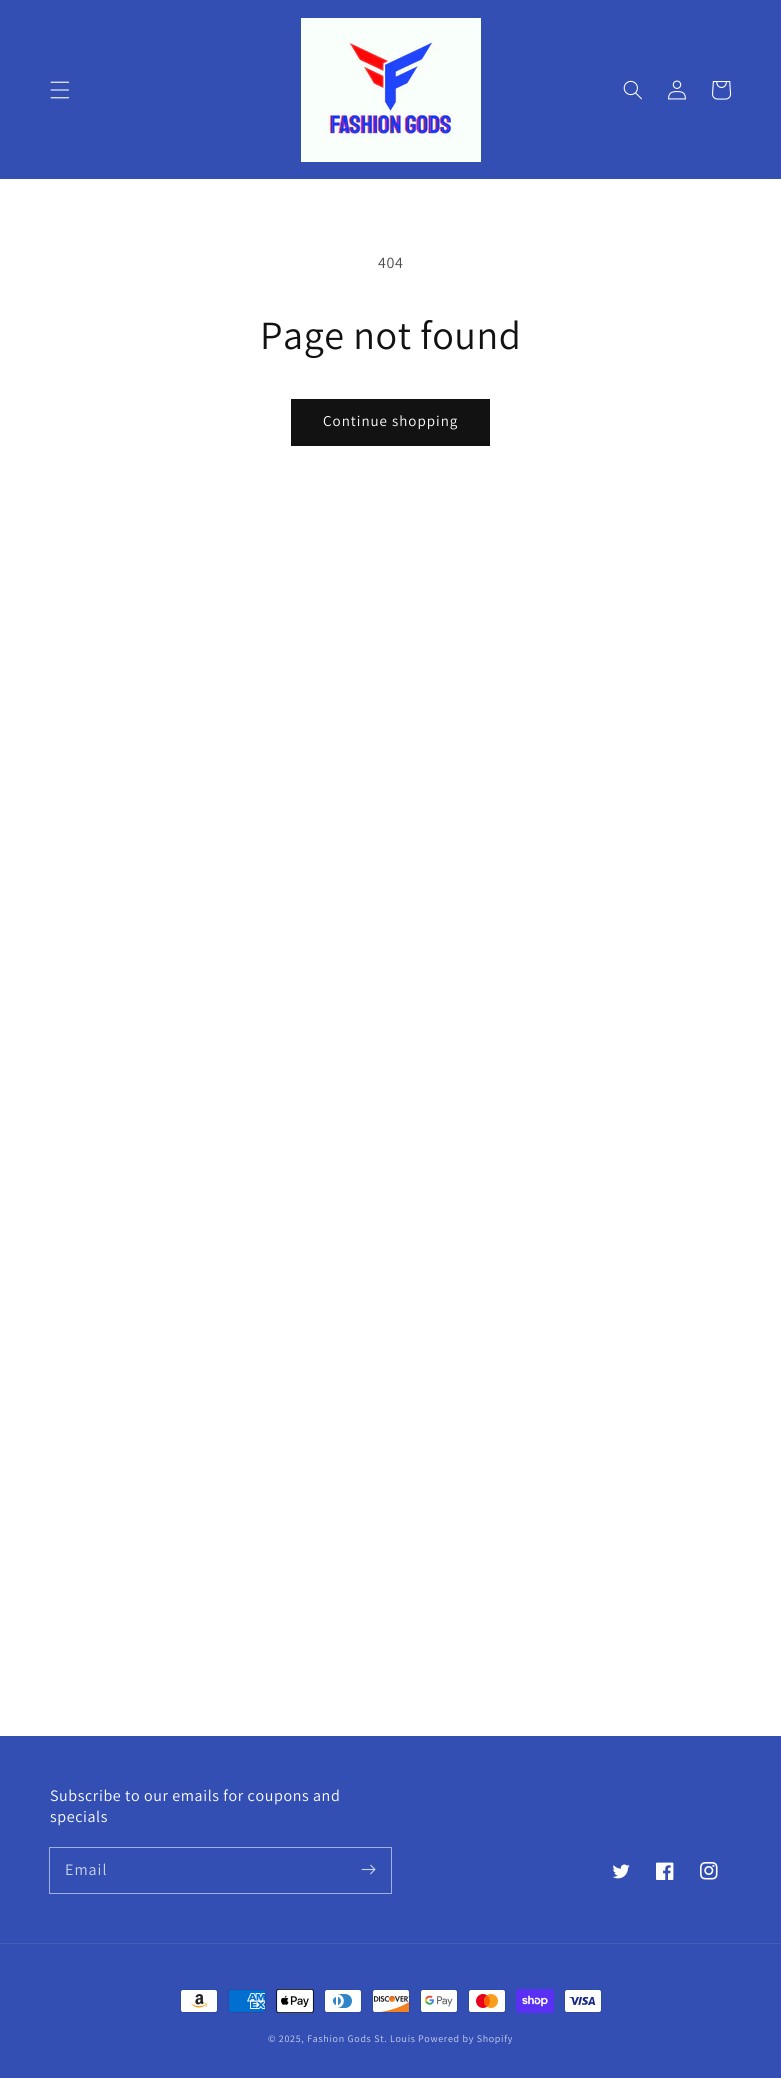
import math
import cairo

surface = cairo.ImageSurface(cairo.FORMAT_RGB24, 781, 2078)
ctx = cairo.Context(surface)
options = cairo.FontOptions()
options.set_hint_metrics(cairo.HINT_METRICS_OFF)
options.set_hint_style(cairo.HINT_STYLE_NONE)
ctx.set_font_options(options)
ctx.set_miter_limit(4)


def spaced_text(x, y, s, letter, word):
    ctx.move_to(x, y)
    for ch in s:
        ctx.show_text(ch)
        ctx.rel_move_to(letter + word * (ch == ' '), 0)


def picture(path, x, y, w, h):
    ctx.save()
    ctx.set_source_surface(cairo.ImageSurface.create_from_png(path), x, y)
    ctx.rectangle(x, y, w, h)
    ctx.fill()
    ctx.restore()


ctx.set_source_rgb(1, 1, 1)
ctx.paint()
ctx.set_source_rgb(0.2, 0.31, 0.706)
ctx.rectangle(0, 0, 781, 179)
ctx.fill()
picture("img1.png", 50, 81, 20, 18)
picture("img2.png", 301, 18, 180, 144)
picture("img3.png", 623, 80, 19, 20)
picture("img4.png", 668, 80, 18, 20)
picture("img5.png", 712, 81, 20, 19)
ctx.select_font_face("Assistant")
ctx.set_font_size(16)
ctx.set_source_rgb(0.302, 0.302, 0.302)
spaced_text(378, 268, "404", 0.6, 0)
ctx.set_font_size(40)
ctx.set_source_rgb(0.071, 0.071, 0.071)
spaced_text(260, 349, "Page not found", 0.6, 0)
ctx.rectangle(291.5, 399.5, 198, 46)
ctx.set_line_width(1)
ctx.stroke()
ctx.rectangle(292, 400, 197, 45)
ctx.fill()
ctx.set_font_size(15)
ctx.set_source_rgb(1, 1, 1)
spaced_text(323, 426, "Continue shopping", 1, 0)
ctx.set_source_rgb(0.2, 0.31, 0.706)
ctx.rectangle(0, 1736, 781, 342)
ctx.fill()
ctx.set_font_size(16)
ctx.set_source_rgb(1, 1, 1)
spaced_text(50, 1801, "Subscribe to our emails for coupons and", 0.6, 0)
spaced_text(50, 1822, "specials", 0.6, 0)
ctx.rectangle(49.5, 1847.5, 342, 46)
ctx.set_source_rgb(0.639, 0.69, 0.867)
ctx.stroke()
ctx.set_source_rgb(0.8, 0.827, 0.925)
spaced_text(65, 1875, "Email", 1, 0)
picture("img6.png", 361, 1864, 15, 11)
picture("img7.png", 612, 1864, 18, 15)
picture("img8.png", 656, 1862, 18, 18)
picture("img9.png", 700, 1862, 18, 18)
ctx.set_source_rgb(0.263, 0.365, 0.729)
ctx.rectangle(0, 1943, 781, 1)
ctx.fill()
picture("img10.png", 180, 1989, 38, 24)
picture("img11.png", 228, 1989, 38, 24)
picture("img12.png", 276, 1989, 38, 24)
picture("img13.png", 324, 1989, 38, 24)
picture("img14.png", 372, 1989, 38, 24)
picture("img15.png", 420, 1989, 38, 24)
picture("img16.png", 468, 1989, 38, 24)
picture("img17.png", 516, 1989, 38, 24)
picture("img18.png", 564, 1989, 38, 24)
ctx.set_font_size(10)
ctx.set_source_rgb(0.8, 0.827, 0.925)
spaced_text(268, 2042, "© 2025, Fashion Gods St. Louis", 0.7, 0)
spaced_text(418, 2042, "Powered by Shopify", 0.7, 0)
surface.write_to_png("page.png")
